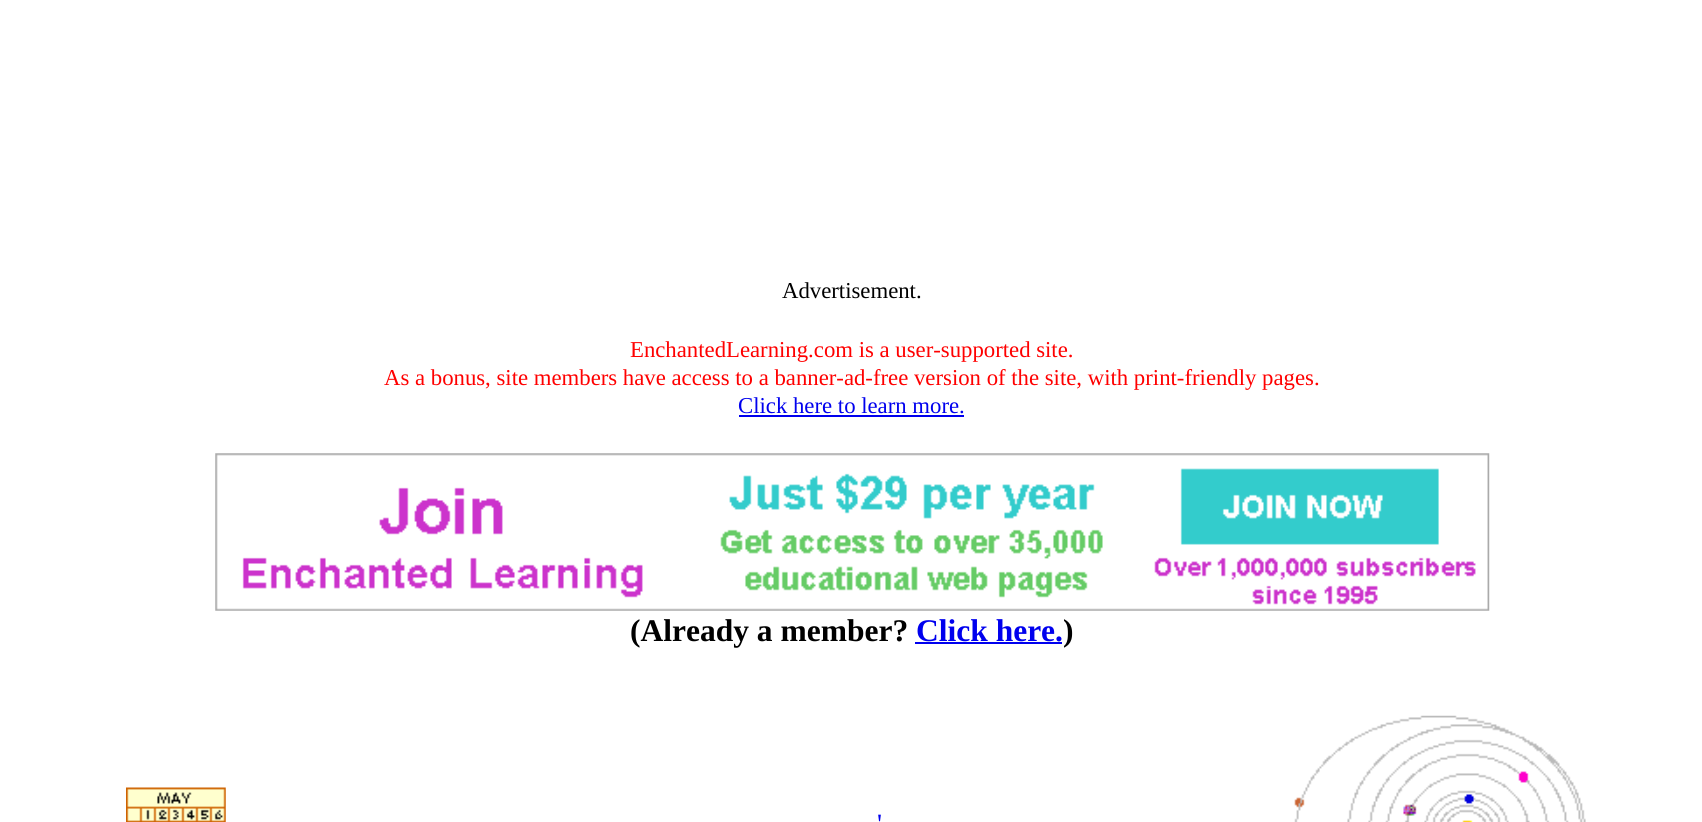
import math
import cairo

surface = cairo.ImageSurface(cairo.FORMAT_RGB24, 1702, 822)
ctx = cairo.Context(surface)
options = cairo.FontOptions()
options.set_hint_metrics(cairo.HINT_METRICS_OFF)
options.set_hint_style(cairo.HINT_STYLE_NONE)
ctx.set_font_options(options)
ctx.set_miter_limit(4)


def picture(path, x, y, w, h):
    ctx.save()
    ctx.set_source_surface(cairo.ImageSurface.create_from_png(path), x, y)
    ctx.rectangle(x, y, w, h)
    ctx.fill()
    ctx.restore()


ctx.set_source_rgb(1, 1, 1)
ctx.paint()
ctx.select_font_face("Liberation Serif")
ctx.set_font_size(22.75)
ctx.set_source_rgb(0, 0, 0)
ctx.move_to(782, 298)
ctx.show_text("Advertisement.")
ctx.set_source_rgb(1, 0, 0)
ctx.move_to(630, 357)
ctx.show_text("EnchantedLearning.com is a user-supported site.")
ctx.move_to(384, 385)
ctx.show_text("As a bonus, site members have access to a banner-ad-free version of the site, with print-friendly pages.")
ctx.set_source_rgb(0, 0, 0.933)
ctx.move_to(738, 413)
ctx.show_text("Click here to learn more.")
ctx.rectangle(739, 415, 225, 2)
ctx.fill()
picture("img1.png", 215, 453, 1275, 158)
ctx.select_font_face("Liberation Serif", cairo.FONT_SLANT_NORMAL, cairo.FONT_WEIGHT_BOLD)
ctx.set_font_size(31.5)
ctx.set_source_rgb(0, 0, 0)
ctx.move_to(630, 641)
ctx.show_text("(Already a member?")
ctx.set_source_rgb(0, 0, 0.933)
ctx.move_to(916, 641)
ctx.show_text("Click here.")
ctx.set_source_rgb(0, 0, 0)
ctx.move_to(1063, 641)
ctx.show_text(")")
ctx.set_source_rgb(0, 0, 0.933)
ctx.rectangle(915, 642, 147, 2)
ctx.fill()
picture("img2.png", 126, 787, 100, 35)
ctx.select_font_face("Liberation Serif")
ctx.set_font_size(28)
ctx.move_to(877, 833)
ctx.show_text("'")
picture("img3.png", 1294, 715, 292, 107)
surface.write_to_png("page.png")
